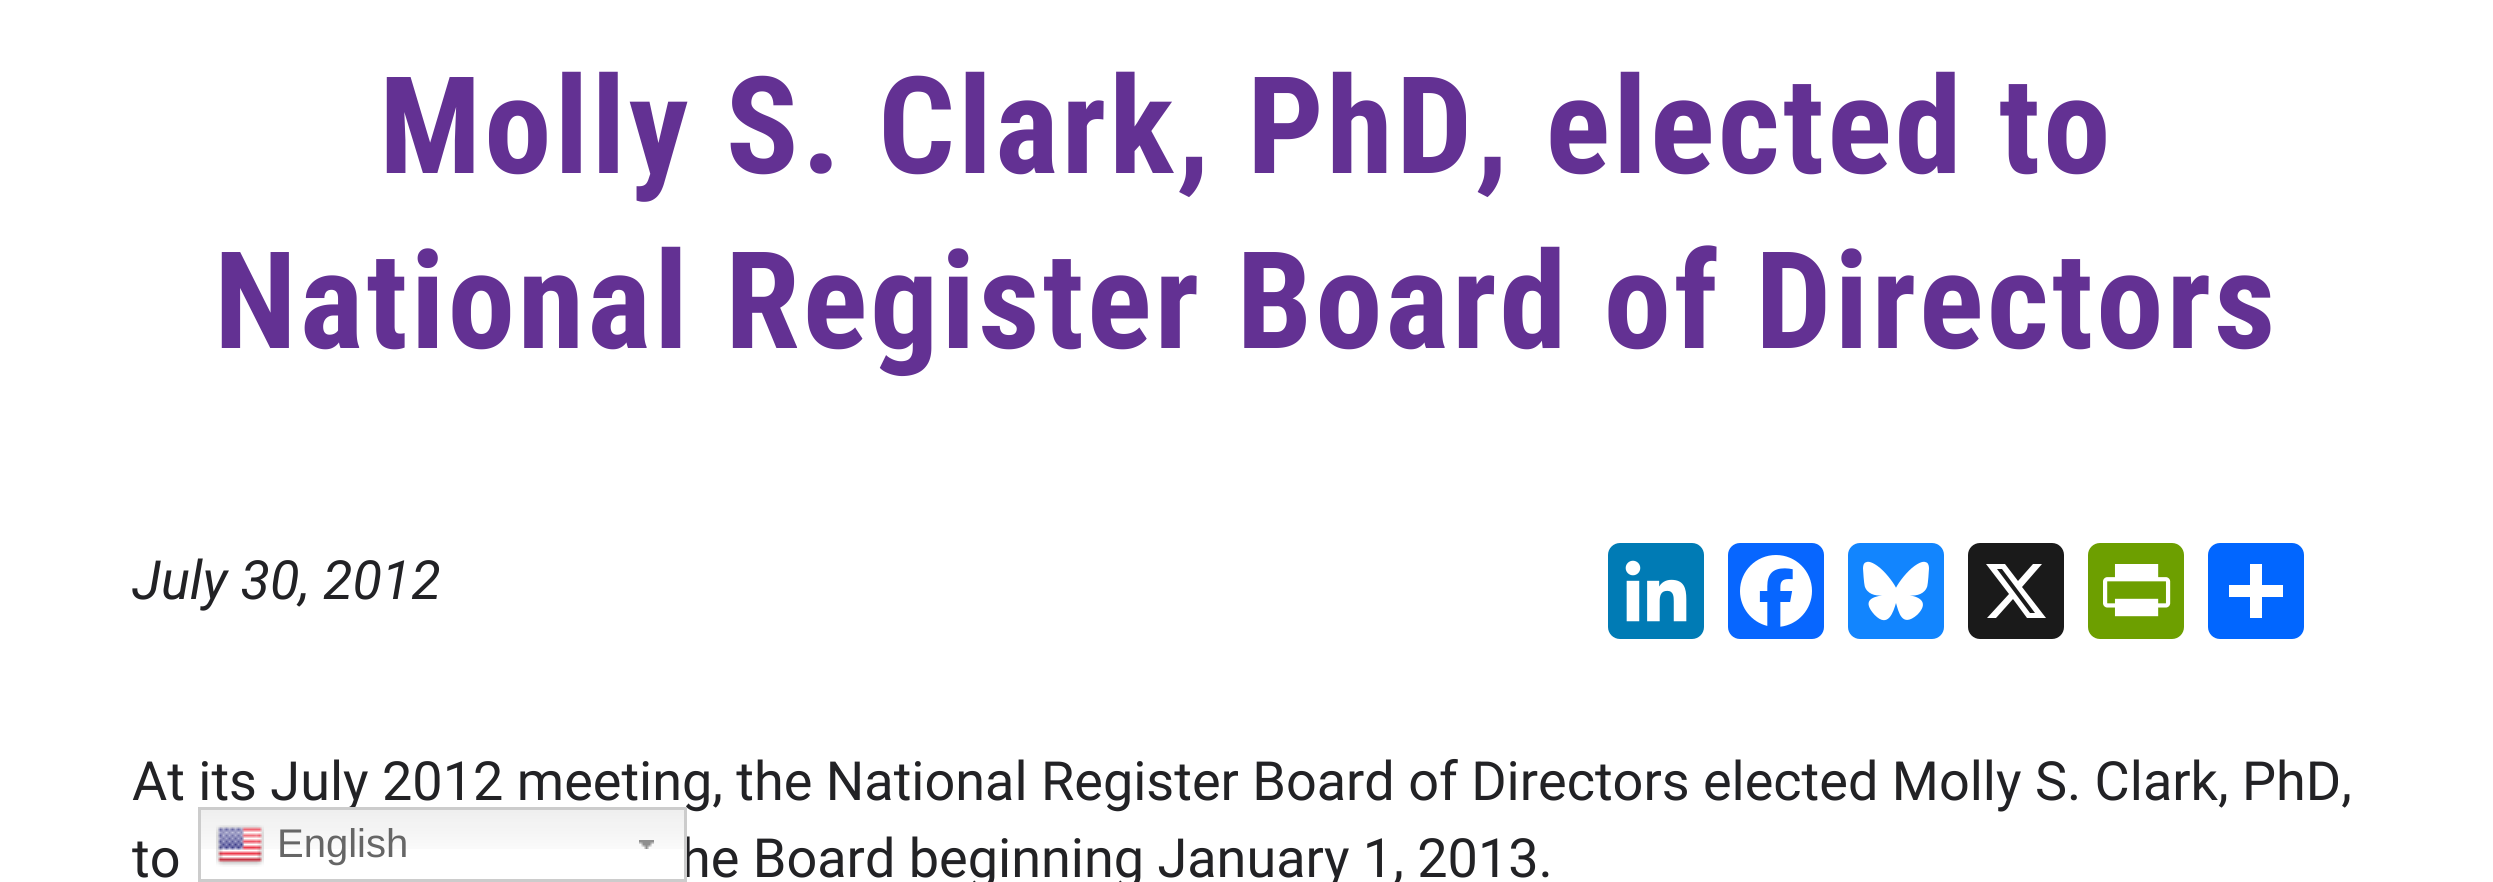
import math
import cairo

surface = cairo.ImageSurface(cairo.FORMAT_RGB24, 2493, 882)
ctx = cairo.Context(surface)
options = cairo.FontOptions()
options.set_hint_metrics(cairo.HINT_METRICS_OFF)
options.set_hint_style(cairo.HINT_STYLE_NONE)
ctx.set_font_options(options)
ctx.set_miter_limit(4)


def spaced_text(x, y, s, letter, word):
    ctx.move_to(x, y)
    for ch in s:
        ctx.show_text(ch)
        ctx.rel_move_to(letter + word * (ch == ' '), 0)


def round_rect(x, y, w, h, r):
    ctx.new_sub_path()
    for i, (u, v) in enumerate([(x + w - r, y + h - r), (x + r, y + h - r), (x + r, y + r), (x + w - r, y + r)]):
        ctx.arc(u, v, r, i * math.pi / 2, (i + 1) * math.pi / 2)
    ctx.close_path()


def picture(path, x, y, w, h):
    ctx.save()
    ctx.set_source_surface(cairo.ImageSurface.create_from_png(path), x, y)
    ctx.rectangle(x, y, w, h)
    ctx.fill()
    ctx.restore()


ctx.set_source_rgb(1, 1, 1)
ctx.paint()
ctx.select_font_face("Roboto Condensed", cairo.FONT_SLANT_NORMAL, cairo.FONT_WEIGHT_BOLD)
ctx.set_font_size(135)
ctx.set_source_rgb(0.388, 0.192, 0.576)
spaced_text(379, 173, "Molly S. Clark, PhD, elected to", 3, 0)
spaced_text(214, 348, "National Register Board of Directors", 3, 0)
ctx.select_font_face("Roboto", cairo.FONT_SLANT_ITALIC)
ctx.set_font_size(54)
ctx.set_source_rgb(0.133, 0.133, 0.145)
ctx.move_to(132, 599)
ctx.show_text("July 30, 2012")
ctx.set_source_rgb(0, 0.482, 0.71)
round_rect(1608, 543, 96, 96, 12)
ctx.fill()
picture("img1.png", 1625, 560, 62, 62)
ctx.set_source_rgb(0.031, 0.4, 1)
round_rect(1728, 543, 96, 96, 12)
ctx.fill()
picture("img2.png", 1740, 555, 72, 72)
ctx.set_source_rgb(0.071, 0.522, 0.996)
round_rect(1848, 543, 96, 96, 12)
ctx.fill()
picture("img3.png", 1863, 561, 66, 60)
ctx.set_source_rgb(0.102, 0.102, 0.102)
round_rect(1968, 543, 96, 96, 12)
ctx.fill()
ctx.set_source_rgb(1, 1, 1)
ctx.new_path()
ctx.move_to(2033, 564)
ctx.line_to(2042, 564)
ctx.line_to(2022, 587)
ctx.line_to(2046, 618)
ctx.line_to(2027, 618)
ctx.line_to(2013, 599)
ctx.line_to(1996, 618)
ctx.line_to(1987, 618)
ctx.line_to(2009, 594)
ctx.line_to(1986, 564)
ctx.line_to(2005, 564)
ctx.line_to(2018, 581)
ctx.close_path()
ctx.move_to(2030, 613)
ctx.line_to(2035, 613)
ctx.line_to(2002, 569)
ctx.line_to(1997, 569)
ctx.close_path()
ctx.fill()
ctx.set_source_rgb(0.427, 0.624, 0)
round_rect(2088, 543, 96, 96, 12)
ctx.fill()
picture("img4.png", 2103, 564, 68, 53)
ctx.set_source_rgb(0.004, 0.4, 1)
round_rect(2208, 543, 96, 96, 12)
ctx.fill()
ctx.set_source_rgb(1, 1, 1)
ctx.rectangle(2250, 564, 12, 54)
ctx.fill()
ctx.rectangle(2229, 585, 54, 12)
ctx.fill()
ctx.select_font_face("Roboto")
ctx.set_source_rgb(0.133, 0.133, 0.145)
ctx.move_to(132, 800)
ctx.show_text("At its July 2012 meeting, the National Register Board of Directors elected Molly S. Clark, PhD,")
ctx.move_to(132, 877)
ctx.show_text("to")
ctx.move_to(681, 877)
ctx.show_text("he Board beginning January 1, 2013.")
picture("img5.png", 201, 810, 483, 39)
picture("img6.png", 639, 840, 15, 9)
ctx.rectangle(199.5, 808.5, 486, 72)
ctx.set_source_rgb(0.8, 0.8, 0.8)
ctx.set_line_width(3)
ctx.stroke()
picture("img7.png", 216, 825, 48, 42)
ctx.select_font_face("Liberation Sans")
ctx.set_font_size(40)
ctx.set_source_rgb(0.4, 0.4, 0.4)
ctx.move_to(277, 857)
ctx.show_text("English")
surface.write_to_png("page.png")
